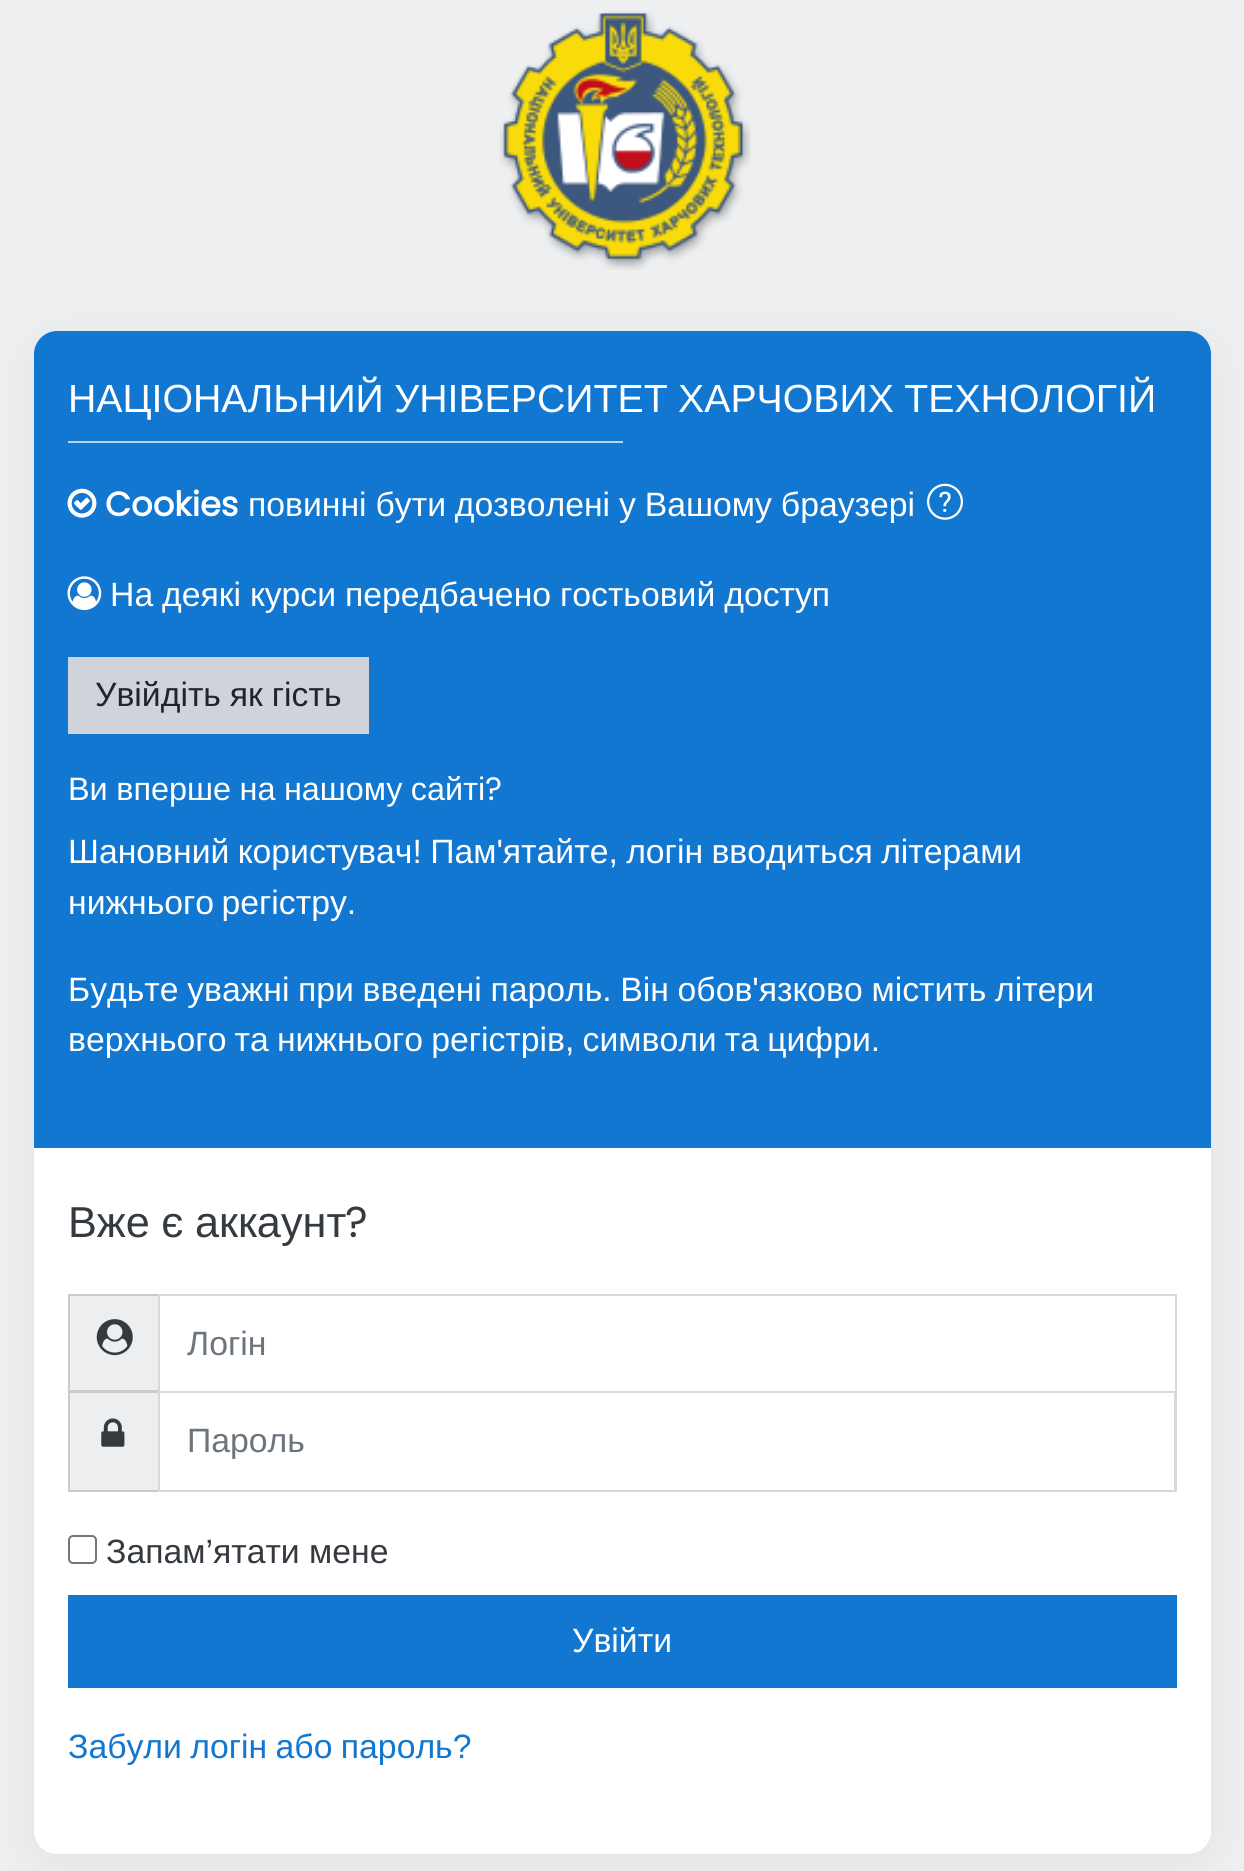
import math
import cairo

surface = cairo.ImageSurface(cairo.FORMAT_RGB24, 1244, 1871)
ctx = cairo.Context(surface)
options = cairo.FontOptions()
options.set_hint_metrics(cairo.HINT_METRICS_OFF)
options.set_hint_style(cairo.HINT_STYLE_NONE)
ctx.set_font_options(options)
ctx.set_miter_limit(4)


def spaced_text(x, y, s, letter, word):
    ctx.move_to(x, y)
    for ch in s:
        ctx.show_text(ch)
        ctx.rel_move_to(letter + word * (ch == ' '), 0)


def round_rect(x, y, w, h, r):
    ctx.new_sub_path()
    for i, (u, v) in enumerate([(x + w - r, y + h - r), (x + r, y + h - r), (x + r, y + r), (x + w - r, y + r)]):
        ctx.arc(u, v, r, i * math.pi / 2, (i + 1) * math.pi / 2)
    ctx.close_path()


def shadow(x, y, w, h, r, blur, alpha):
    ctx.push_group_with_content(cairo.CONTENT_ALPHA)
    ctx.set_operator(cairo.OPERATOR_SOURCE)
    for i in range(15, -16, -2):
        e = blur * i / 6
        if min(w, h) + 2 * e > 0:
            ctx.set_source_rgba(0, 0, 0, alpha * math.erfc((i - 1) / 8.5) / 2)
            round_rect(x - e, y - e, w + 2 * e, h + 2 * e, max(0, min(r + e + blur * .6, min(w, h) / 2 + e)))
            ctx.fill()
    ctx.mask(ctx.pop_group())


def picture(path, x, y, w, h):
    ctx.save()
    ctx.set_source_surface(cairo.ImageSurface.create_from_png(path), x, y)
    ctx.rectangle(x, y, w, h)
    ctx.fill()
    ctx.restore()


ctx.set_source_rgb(0.933, 0.937, 0.941)
ctx.paint()
picture("img1.png", 499, 11, 252, 259)
ctx.set_source_rgb(0, 0, 0)
shadow(34, 342, 1177, 1523, 23, 22.5, 0.05)
ctx.set_source_rgb(1, 1, 1)
round_rect(34, 331, 1177, 1523, 23)
ctx.fill()
ctx.set_source_rgb(0.067, 0.467, 0.82)
ctx.new_path()
ctx.move_to(57, 331)
ctx.line_to(1188, 331)
ctx.curve_to(1200.5, 331, 1211, 341.5, 1211, 354)
ctx.line_to(1211, 1148)
ctx.line_to(34, 1148)
ctx.line_to(34, 354)
ctx.curve_to(34, 341.5, 44.5, 331, 57, 331)
ctx.close_path()
ctx.fill()
ctx.select_font_face("Liberation Sans")
ctx.set_font_size(39.25)
ctx.set_source_rgb(1, 1, 1)
spaced_text(68, 412, "НАЦІОНАЛЬНИЙ УНІВЕРСИТЕТ ХАРЧОВИХ ТЕХНОЛОГІЙ", 0, -0.5)
ctx.set_source_rgb(0.722, 0.839, 0.945)
ctx.rectangle(68, 441, 555, 2)
ctx.fill()
picture("img2.png", 67, 488, 30, 30)
ctx.select_font_face("Poppins", cairo.FONT_SLANT_NORMAL, cairo.FONT_WEIGHT_BOLD)
ctx.set_font_size(33.75)
ctx.set_source_rgb(1, 1, 1)
ctx.move_to(105, 516)
ctx.show_text("Cookies")
ctx.select_font_face("Liberation Sans")
spaced_text(248, 516, "повинні бути дозволені у Вашому браузері", 0, -0.5)
picture("img3.png", 927, 483, 36, 37)
picture("img4.png", 67, 576, 35, 35)
spaced_text(110, 606, "На деякі курси передбачено гостьовий доступ", 0, -0.5)
ctx.set_source_rgb(0.808, 0.831, 0.855)
ctx.rectangle(68, 657, 301, 77)
ctx.fill()
ctx.set_source_rgb(0.129, 0.145, 0.161)
spaced_text(95, 706, "Увійдіть як гість", 0, -0.5)
ctx.set_font_size(32.4)
ctx.set_source_rgb(1, 1, 1)
spaced_text(68, 800, "Ви вперше на нашому сайті", 0, -0.5)
ctx.select_font_face("Poppins")
ctx.move_to(485, 800)
ctx.show_text("?")
ctx.select_font_face("Liberation Sans")
ctx.set_font_size(33.75)
spaced_text(68, 863, "Шановний користувач! Пам'ятайте, логін вводиться літерами", 0, -1)
spaced_text(68, 914, "нижнього регістру.", 0, -2)
spaced_text(68, 1001, "Будьте уважні при введені пароль. Він обов'язково містить літери", 0, -0.75)
spaced_text(68, 1051, "верхнього та нижнього регістрів, символи та цифри.", 0, -1.25)
ctx.set_font_size(43.25)
ctx.set_source_rgb(0.204, 0.227, 0.251)
spaced_text(68, 1237, "Вже є аккаунт", 0, -0.5)
ctx.select_font_face("Poppins")
ctx.move_to(345, 1237)
ctx.show_text("?")
ctx.set_source_rgb(0.925, 0.933, 0.937)
ctx.rectangle(68, 1294, 90, 198)
ctx.fill()
ctx.set_source_rgb(0.788, 0.792, 0.796)
ctx.new_path()
ctx.move_to(68, 1294)
ctx.line_to(158, 1294)
ctx.line_to(158, 1296)
ctx.line_to(70, 1296)
ctx.close_path()
ctx.fill()
ctx.new_path()
ctx.move_to(158, 1393)
ctx.line_to(68, 1393)
ctx.line_to(70, 1390)
ctx.line_to(158, 1390)
ctx.close_path()
ctx.fill()
ctx.set_source_rgba(0, 0, 0, 0.15)
ctx.new_path()
ctx.move_to(68, 1393)
ctx.line_to(68, 1294)
ctx.line_to(70, 1296)
ctx.line_to(70, 1390)
ctx.close_path()
ctx.fill()
picture("img5.png", 96, 1319, 37, 37)
ctx.rectangle(159, 1295, 1017, 97)
ctx.set_source_rgb(0.851, 0.851, 0.851)
ctx.stroke()
ctx.select_font_face("Liberation Sans")
ctx.set_font_size(33.75)
ctx.set_source_rgb(0.424, 0.459, 0.49)
ctx.move_to(187, 1355)
ctx.show_text("Логін")
ctx.set_source_rgb(0.788, 0.792, 0.796)
ctx.new_path()
ctx.move_to(158, 1492)
ctx.line_to(68, 1492)
ctx.line_to(70, 1490)
ctx.line_to(158, 1490)
ctx.close_path()
ctx.fill()
ctx.set_source_rgba(0, 0, 0, 0.15)
ctx.new_path()
ctx.move_to(68, 1492)
ctx.line_to(68, 1393)
ctx.line_to(70, 1393)
ctx.line_to(70, 1490)
ctx.close_path()
ctx.fill()
picture("img6.png", 101, 1418, 24, 29)
ctx.set_source_rgb(0.851, 0.851, 0.851)
ctx.new_path()
ctx.move_to(1177, 1393)
ctx.line_to(1177, 1492)
ctx.line_to(1174, 1490)
ctx.line_to(1174, 1393)
ctx.close_path()
ctx.fill()
ctx.set_source_rgba(0, 0, 0, 0.15)
ctx.new_path()
ctx.move_to(1177, 1492)
ctx.line_to(158, 1492)
ctx.line_to(160, 1490)
ctx.line_to(1174, 1490)
ctx.close_path()
ctx.fill()
ctx.new_path()
ctx.move_to(158, 1492)
ctx.line_to(158, 1393)
ctx.line_to(160, 1393)
ctx.line_to(160, 1490)
ctx.close_path()
ctx.fill()
ctx.set_source_rgb(0.424, 0.459, 0.49)
ctx.move_to(187, 1452)
ctx.show_text("Пароль")
round_rect(69, 1536, 27, 27, 4)
ctx.set_source_rgb(0.463, 0.463, 0.463)
ctx.stroke()
ctx.set_source_rgb(0.204, 0.227, 0.251)
ctx.move_to(106, 1563)
ctx.show_text("Запам’ятати мене")
ctx.set_source_rgb(0.067, 0.467, 0.82)
ctx.rectangle(68, 1595, 1109, 93)
ctx.fill()
ctx.set_source_rgb(1, 1, 1)
ctx.move_to(572, 1652)
ctx.show_text("Увійти")
ctx.set_source_rgb(0.067, 0.467, 0.82)
spaced_text(68, 1758, "Забули логін або пароль?", 0, -1)
surface.write_to_png("page.png")
